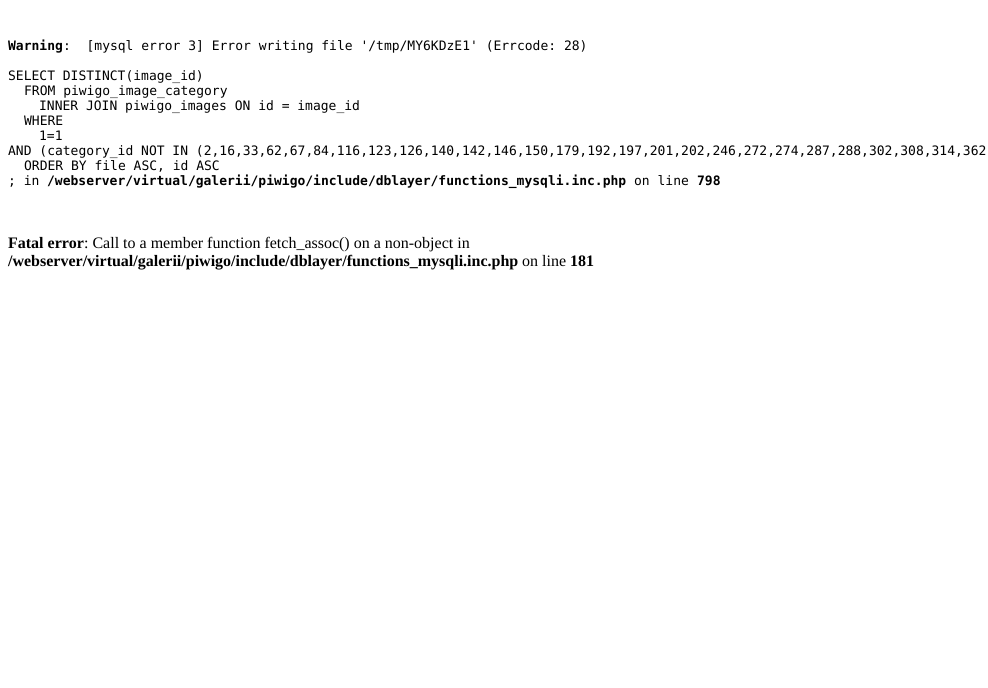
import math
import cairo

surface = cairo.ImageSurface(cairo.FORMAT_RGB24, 988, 688)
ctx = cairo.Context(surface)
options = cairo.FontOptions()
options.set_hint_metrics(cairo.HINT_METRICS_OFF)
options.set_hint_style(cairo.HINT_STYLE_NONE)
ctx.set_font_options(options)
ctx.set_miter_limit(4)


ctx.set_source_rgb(1, 1, 1)
ctx.paint()
ctx.select_font_face("DejaVu Sans Mono", cairo.FONT_SLANT_NORMAL, cairo.FONT_WEIGHT_BOLD)
ctx.set_font_size(13)
ctx.set_source_rgb(0, 0, 0)
ctx.move_to(8, 50)
ctx.show_text("Warning")
ctx.select_font_face("DejaVu Sans Mono")
ctx.move_to(63, 50)
ctx.show_text(":  [mysql error 3] Error writing file '/tmp/MY6KDzE1' (Errcode: 28)")
ctx.move_to(8, 80)
ctx.show_text("SELECT DISTINCT(image_id)")
ctx.move_to(24, 95)
ctx.show_text("FROM piwigo_image_category")
ctx.move_to(39, 110)
ctx.show_text("INNER JOIN piwigo_images ON id = image_id")
ctx.move_to(24, 125)
ctx.show_text("WHERE")
ctx.move_to(39, 140)
ctx.show_text("1=1")
ctx.move_to(8, 155)
ctx.show_text("AND (category_id NOT IN (2,16,33,62,67,84,116,123,126,140,142,146,150,179,192,197,201,202,246,272,274,287,288,302,308,314,362")
ctx.move_to(24, 170)
ctx.show_text("ORDER BY file ASC, id ASC")
ctx.move_to(8, 185)
ctx.show_text("; in")
ctx.select_font_face("DejaVu Sans Mono", cairo.FONT_SLANT_NORMAL, cairo.FONT_WEIGHT_BOLD)
ctx.move_to(47, 185)
ctx.show_text("/webserver/virtual/galerii/piwigo/include/dblayer/functions_mysqli.inc.php")
ctx.select_font_face("DejaVu Sans Mono")
ctx.move_to(634, 185)
ctx.show_text("on line")
ctx.select_font_face("DejaVu Sans Mono", cairo.FONT_SLANT_NORMAL, cairo.FONT_WEIGHT_BOLD)
ctx.move_to(697, 185)
ctx.show_text("798")
ctx.select_font_face("Liberation Serif", cairo.FONT_SLANT_NORMAL, cairo.FONT_WEIGHT_BOLD)
ctx.set_font_size(16)
ctx.move_to(8, 248)
ctx.show_text("Fatal error")
ctx.select_font_face("Liberation Serif")
ctx.move_to(84, 248)
ctx.show_text(": Call to a member function fetch_assoc() on a non-object in")
ctx.select_font_face("Liberation Serif", cairo.FONT_SLANT_NORMAL, cairo.FONT_WEIGHT_BOLD)
ctx.move_to(8, 266)
ctx.show_text("/webserver/virtual/galerii/piwigo/include/dblayer/functions_mysqli.inc.php")
ctx.select_font_face("Liberation Serif")
ctx.move_to(522, 266)
ctx.show_text("on line")
ctx.select_font_face("Liberation Serif", cairo.FONT_SLANT_NORMAL, cairo.FONT_WEIGHT_BOLD)
ctx.move_to(570, 266)
ctx.show_text("181")
surface.write_to_png("page.png")
